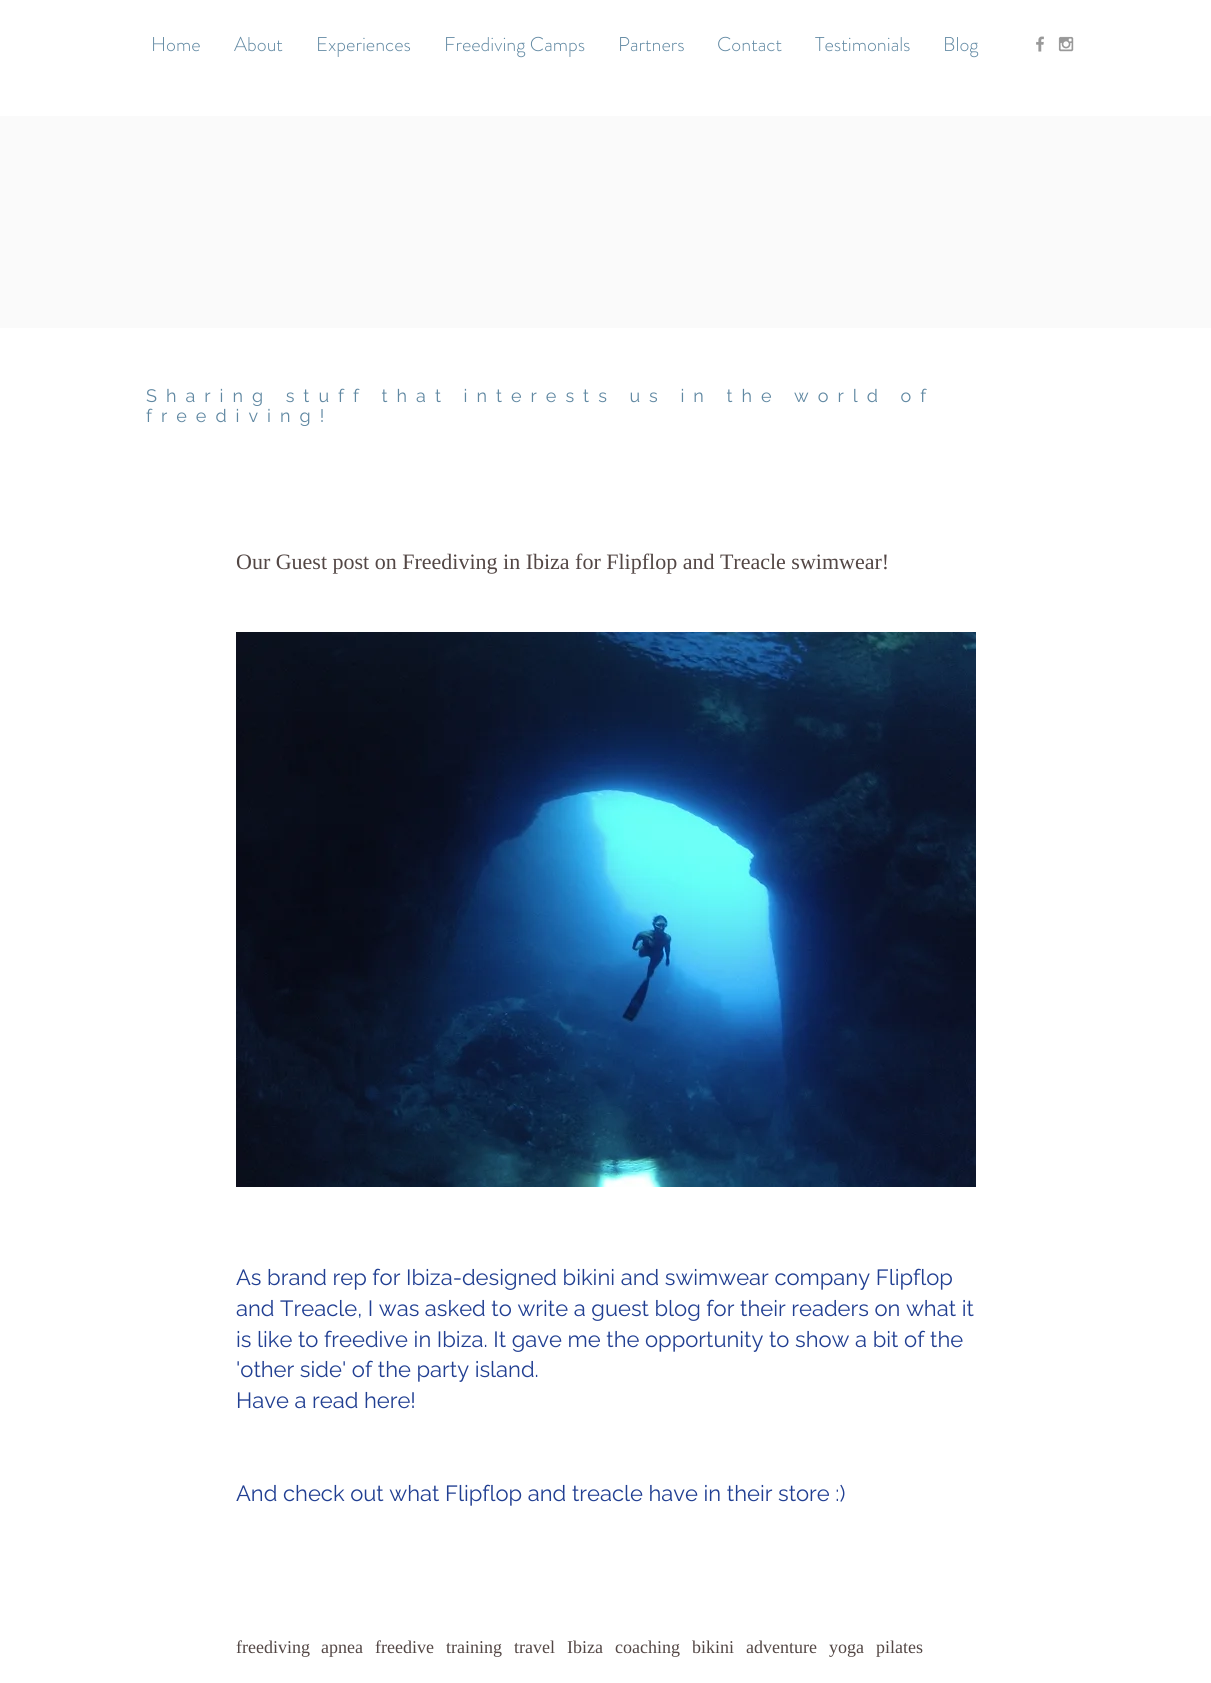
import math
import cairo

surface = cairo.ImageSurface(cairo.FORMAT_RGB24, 1211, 1683)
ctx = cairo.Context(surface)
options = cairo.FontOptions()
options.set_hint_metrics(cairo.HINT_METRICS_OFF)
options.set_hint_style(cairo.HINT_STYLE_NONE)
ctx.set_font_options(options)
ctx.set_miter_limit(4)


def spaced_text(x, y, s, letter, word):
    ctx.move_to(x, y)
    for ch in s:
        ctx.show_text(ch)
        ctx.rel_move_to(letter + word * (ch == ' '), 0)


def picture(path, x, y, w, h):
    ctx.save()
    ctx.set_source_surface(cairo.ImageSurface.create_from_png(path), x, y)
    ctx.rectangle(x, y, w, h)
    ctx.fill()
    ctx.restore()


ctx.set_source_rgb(1, 1, 1)
ctx.paint()
ctx.select_font_face("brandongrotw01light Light")
ctx.set_font_size(20)
ctx.set_source_rgb(0.376, 0.533, 0.635)
ctx.move_to(151, 51)
ctx.show_text("Home")
ctx.move_to(234, 51)
ctx.show_text("About")
ctx.move_to(316, 51)
ctx.show_text("Experiences")
ctx.move_to(444, 51)
ctx.show_text("Freediving Camps")
ctx.move_to(618, 51)
ctx.show_text("Partners")
ctx.move_to(717, 51)
ctx.show_text("Contact")
ctx.move_to(815, 51)
ctx.show_text("Testimonials")
ctx.move_to(943, 51)
ctx.show_text("Blog")
picture("img1.png", 1036, 36, 8, 16)
picture("img2.png", 1058, 36, 16, 16)
ctx.set_source_rgb(0.98, 0.98, 0.98)
ctx.rectangle(0, 116, 1211, 212)
ctx.fill()
ctx.select_font_face("Raleway")
ctx.set_font_size(18)
ctx.set_source_rgb(0.376, 0.533, 0.635)
spaced_text(146, 402, "Sharing stuff that interests us in the world of", 9, 0)
spaced_text(146, 422, "freediving!", 9, 0)
ctx.select_font_face("Liberation Serif")
ctx.set_font_size(22)
ctx.set_source_rgb(0.325, 0.278, 0.271)
ctx.move_to(236, 569)
ctx.show_text("Our Guest post on Freediving in Ibiza for Flipflop and Treacle swimwear!")
picture("img3.png", 236, 632, 740, 555)
ctx.select_font_face("Raleway")
ctx.set_source_rgb(0.129, 0.247, 0.573)
ctx.move_to(236, 1285)
ctx.show_text("As brand rep for Ibiza-designed bikini and swimwear company Flipflop")
ctx.move_to(236, 1316)
ctx.show_text("and Treacle, I was asked to write a guest blog for their readers on what it")
ctx.move_to(236, 1347)
ctx.show_text("is like to freedive in Ibiza. It gave me the opportunity to show a bit of the")
ctx.move_to(236, 1377)
ctx.show_text("'other side' of the party island.")
ctx.move_to(236, 1408)
ctx.show_text("Have a read here!")
ctx.move_to(236, 1501)
ctx.show_text("And check out what Flipflop and treacle have in their store :)")
ctx.select_font_face("Liberation Serif")
ctx.set_font_size(18)
ctx.set_source_rgb(0.325, 0.278, 0.271)
ctx.move_to(236, 1653)
ctx.show_text("freediving")
ctx.move_to(321, 1653)
ctx.show_text("apnea")
ctx.move_to(375, 1653)
ctx.show_text("freedive")
ctx.move_to(446, 1653)
ctx.show_text("training")
ctx.move_to(514, 1653)
ctx.show_text("travel")
ctx.move_to(567, 1653)
ctx.show_text("Ibiza")
ctx.move_to(615, 1653)
ctx.show_text("coaching")
ctx.move_to(692, 1653)
ctx.show_text("bikini")
ctx.move_to(746, 1653)
ctx.show_text("adventure")
ctx.move_to(829, 1653)
ctx.show_text("yoga")
ctx.move_to(876, 1653)
ctx.show_text("pilates")
surface.write_to_png("page.png")
